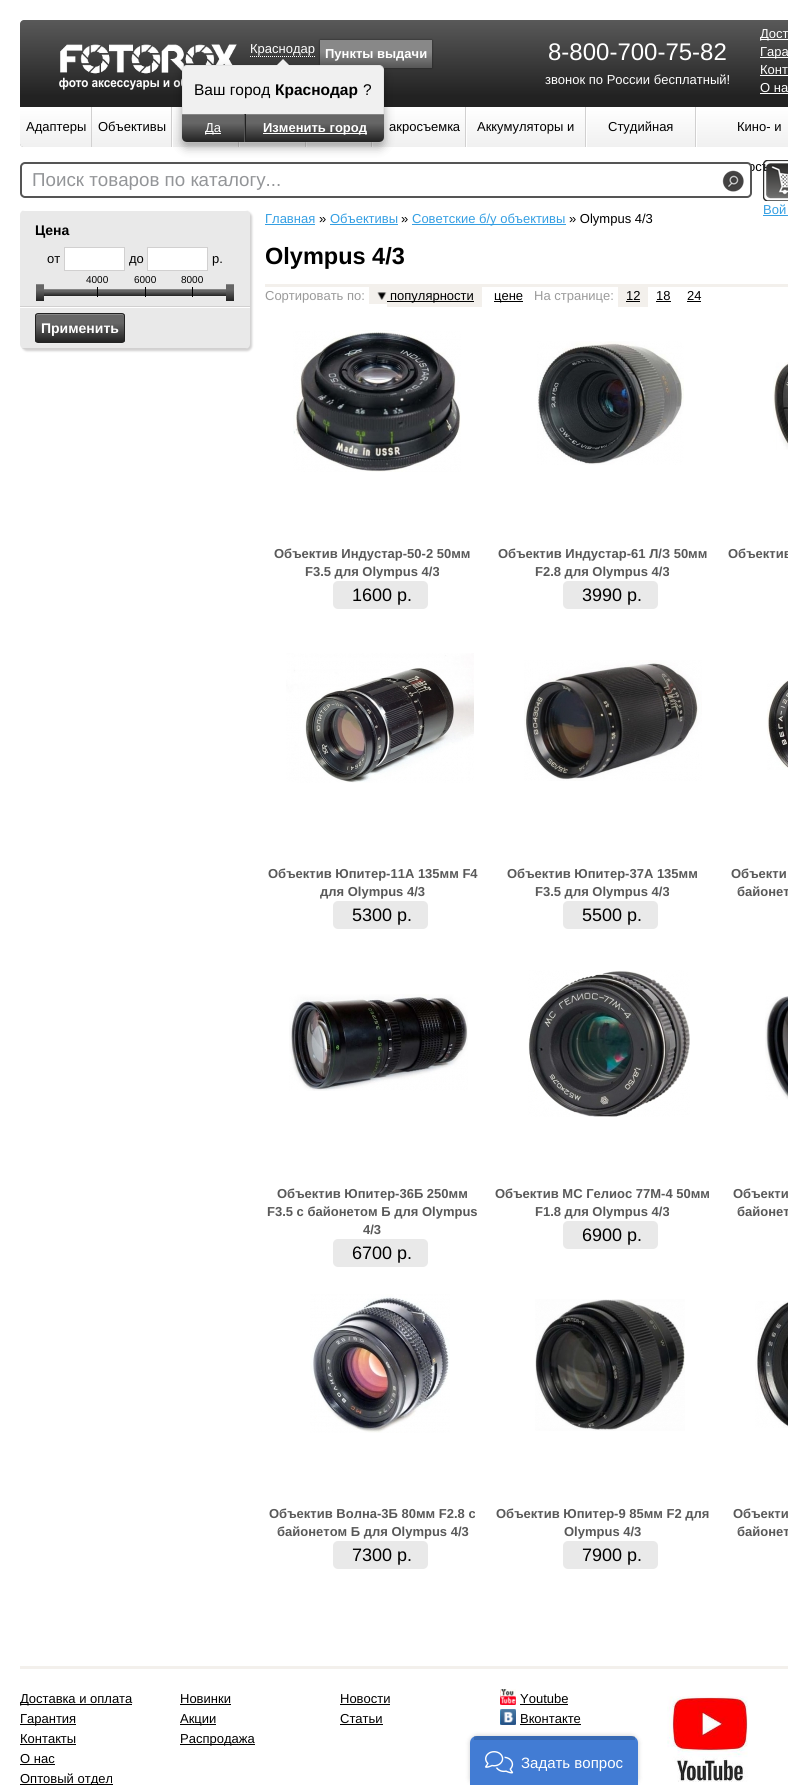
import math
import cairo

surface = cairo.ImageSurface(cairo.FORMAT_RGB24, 788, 1785)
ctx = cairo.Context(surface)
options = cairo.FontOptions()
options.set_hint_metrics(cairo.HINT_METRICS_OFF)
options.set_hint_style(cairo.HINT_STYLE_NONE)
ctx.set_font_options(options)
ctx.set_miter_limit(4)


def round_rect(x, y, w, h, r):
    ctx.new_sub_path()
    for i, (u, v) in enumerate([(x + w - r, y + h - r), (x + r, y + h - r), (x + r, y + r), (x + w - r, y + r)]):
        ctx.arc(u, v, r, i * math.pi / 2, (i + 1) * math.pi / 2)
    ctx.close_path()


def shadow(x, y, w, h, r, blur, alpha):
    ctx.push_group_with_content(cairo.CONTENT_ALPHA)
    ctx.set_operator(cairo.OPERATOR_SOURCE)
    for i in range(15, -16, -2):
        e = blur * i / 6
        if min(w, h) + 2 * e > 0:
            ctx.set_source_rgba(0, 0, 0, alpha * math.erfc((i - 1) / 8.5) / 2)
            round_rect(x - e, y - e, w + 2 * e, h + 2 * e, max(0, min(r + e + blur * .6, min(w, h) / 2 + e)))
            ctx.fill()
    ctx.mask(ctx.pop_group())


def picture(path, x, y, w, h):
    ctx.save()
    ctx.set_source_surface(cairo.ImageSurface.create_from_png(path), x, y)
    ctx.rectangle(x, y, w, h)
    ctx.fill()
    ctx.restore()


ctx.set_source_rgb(1, 1, 1)
ctx.paint()
gradient = cairo.LinearGradient(520, 20, 520, 147)
gradient.add_color_stop_rgba(0, 0.349, 0.349, 0.349, 1)
gradient.add_color_stop_rgba(0.6, 0.133, 0.133, 0.133, 1)
ctx.set_source(gradient)
round_rect(20, 20, 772, 127, 4)
ctx.fill()
picture("img1.png", 59, 44, 178, 46)
ctx.select_font_face("Liberation Sans")
ctx.set_font_size(13)
ctx.set_source_rgb(1, 1, 1)
ctx.move_to(250, 53)
ctx.show_text("Краснодар")
ctx.new_path()
ctx.move_to(250, 56.5)
ctx.line_to(315, 56.5)
ctx.set_line_width(1)
ctx.set_dash([1, 1])
ctx.stroke()
ctx.set_source_rgb(0, 0, 0)
shadow(320, 40, 112, 28, 0, 1, 0.5)
gradient = cairo.LinearGradient(376, 40, 376, 68)
gradient.add_color_stop_rgba(0.43, 0.533, 0.533, 0.533, 1)
gradient.add_color_stop_rgba(1, 0.333, 0.333, 0.333, 1)
ctx.set_source(gradient)
ctx.rectangle(320, 40, 112, 28)
ctx.fill()
gradient = cairo.LinearGradient(131, 107, 131, 147)
gradient.add_color_stop_rgba(0, 1, 1, 1, 1)
gradient.add_color_stop_rgba(1, 0.941, 0.941, 0.941, 1)
ctx.set_source(gradient)
ctx.rectangle(92, 107, 79, 40)
ctx.fill()
ctx.set_source_rgb(1, 1, 1)
ctx.rectangle(172, 107, 1, 40)
ctx.fill()
gradient = cairo.LinearGradient(205, 107, 205, 147)
gradient.add_color_stop_rgba(0, 1, 1, 1, 1)
gradient.add_color_stop_rgba(1, 0.941, 0.941, 0.941, 1)
ctx.set_source(gradient)
ctx.rectangle(173, 107, 65, 40)
ctx.fill()
ctx.set_source_rgb(1, 1, 1)
ctx.rectangle(239, 142, 1, 5)
ctx.fill()
ctx.set_source_rgb(0.82, 0.816, 0.816)
ctx.rectangle(171, 107, 1, 40)
ctx.fill()
gradient = cairo.LinearGradient(418, 107, 418, 147)
gradient.add_color_stop_rgba(0, 1, 1, 1, 1)
gradient.add_color_stop_rgba(1, 0.941, 0.941, 0.941, 1)
ctx.set_source(gradient)
ctx.rectangle(373, 107, 92, 40)
ctx.fill()
ctx.set_source_rgb(0.82, 0.816, 0.816)
ctx.rectangle(371, 142, 1, 5)
ctx.fill()
gradient = cairo.LinearGradient(272, 107, 272, 147)
gradient.add_color_stop_rgba(0, 1, 1, 1, 1)
gradient.add_color_stop_rgba(1, 0.941, 0.941, 0.941, 1)
ctx.set_source(gradient)
ctx.rectangle(240, 142, 65, 5)
ctx.fill()
ctx.set_source_rgb(1, 1, 1)
ctx.rectangle(306, 142, 1, 5)
ctx.fill()
ctx.set_source_rgb(0.82, 0.816, 0.816)
ctx.rectangle(238, 142, 1, 5)
ctx.fill()
gradient = cairo.LinearGradient(338, 107, 338, 147)
gradient.add_color_stop_rgba(0, 1, 1, 1, 1)
gradient.add_color_stop_rgba(1, 0.941, 0.941, 0.941, 1)
ctx.set_source(gradient)
ctx.rectangle(307, 142, 64, 5)
ctx.fill()
ctx.set_source_rgb(1, 1, 1)
ctx.rectangle(372, 142, 1, 5)
ctx.fill()
ctx.set_source_rgb(0.82, 0.816, 0.816)
ctx.rectangle(305, 142, 1, 5)
ctx.fill()
ctx.set_source_rgb(0, 0, 0)
ctx.move_to(748, 171)
ctx.show_text("осъ")
ctx.set_source_rgb(1, 1, 1)
round_rect(21, 163, 730, 34, 4)
ctx.fill_preserve()
ctx.set_source_rgb(0.333, 0.333, 0.333)
ctx.set_line_width(2)
ctx.set_dash([])
ctx.stroke()
ctx.set_source_rgb(0, 0, 0)
shadow(182, 70, 202, 77, 5, 5, 0.35)
ctx.set_source_rgb(0.941, 0.941, 0.941)
round_rect(182.5, 65.5, 201, 76, 4.5)
ctx.fill_preserve()
ctx.set_source_rgb(0.898, 0.898, 0.898)
ctx.set_line_width(1)
ctx.stroke()
ctx.set_source_rgb(0.941, 0.941, 0.941)
ctx.new_path()
ctx.move_to(290, 66)
ctx.line_to(276, 66)
ctx.line_to(283, 59)
ctx.close_path()
ctx.fill()
ctx.set_font_size(15.5)
ctx.set_source_rgb(0, 0, 0)
ctx.move_to(194, 95)
ctx.show_text("Ваш город")
ctx.select_font_face("Liberation Sans", cairo.FONT_SLANT_NORMAL, cairo.FONT_WEIGHT_BOLD)
ctx.move_to(275, 95)
ctx.show_text("Краснодар")
ctx.select_font_face("Liberation Sans")
ctx.move_to(363, 95)
ctx.show_text("?")
ctx.set_source_rgba(1, 1, 1, 0.14)
ctx.new_path()
ctx.move_to(182, 137)
ctx.line_to(182, 138)
ctx.curve_to(182, 141, 184, 143, 187, 143)
ctx.line_to(245, 143)
ctx.line_to(245, 142)
ctx.line_to(187, 142)
ctx.curve_to(184, 142, 182, 140, 182, 137)
ctx.close_path()
ctx.fill()
gradient = cairo.LinearGradient(213, 114, 213, 142)
gradient.add_color_stop_rgba(0.33, 0.4, 0.4, 0.4, 1)
gradient.add_color_stop_rgba(0.83, 0.2, 0.2, 0.2, 1)
gradient.add_color_stop_rgba(1, 0.133, 0.133, 0.133, 1)
ctx.set_source(gradient)
ctx.new_path()
ctx.move_to(182, 114)
ctx.line_to(245, 114)
ctx.line_to(245, 142)
ctx.line_to(187, 142)
ctx.curve_to(184, 142, 182, 140, 182, 137)
ctx.close_path()
ctx.fill()
ctx.set_source_rgb(0.525, 0.525, 0.525)
ctx.rectangle(182, 114, 62, 1)
ctx.fill()
ctx.set_source_rgb(0.333, 0.333, 0.333)
ctx.rectangle(244, 114, 1, 28)
ctx.fill()
ctx.set_source_rgb(1, 1, 1)
ctx.rectangle(205, 133, 16, 1)
ctx.fill()
ctx.set_font_size(13)
ctx.move_to(205, 132)
ctx.show_text("Да")
ctx.set_source_rgba(1, 1, 1, 0.14)
ctx.new_path()
ctx.move_to(245, 142)
ctx.line_to(245, 143)
ctx.line_to(379, 143)
ctx.curve_to(382, 143, 384, 141, 384, 138)
ctx.line_to(384, 137)
ctx.curve_to(384, 140, 382, 142, 379, 142)
ctx.close_path()
ctx.fill()
gradient = cairo.LinearGradient(315, 114, 315, 142)
gradient.add_color_stop_rgba(0.33, 0.4, 0.4, 0.4, 1)
gradient.add_color_stop_rgba(0.83, 0.2, 0.2, 0.2, 1)
gradient.add_color_stop_rgba(1, 0.133, 0.133, 0.133, 1)
ctx.set_source(gradient)
ctx.new_path()
ctx.move_to(245, 114)
ctx.line_to(384, 114)
ctx.line_to(384, 137)
ctx.curve_to(384, 140, 382, 142, 379, 142)
ctx.line_to(245, 142)
ctx.close_path()
ctx.fill()
ctx.set_source_rgb(0.525, 0.525, 0.525)
ctx.rectangle(246, 114, 138, 1)
ctx.fill()
ctx.set_source_rgb(0.133, 0.133, 0.133)
ctx.rectangle(245, 114, 1, 28)
ctx.fill()
ctx.set_source_rgb(1, 1, 1)
ctx.rectangle(263, 133, 104, 1)
ctx.fill()
ctx.select_font_face("Liberation Sans", cairo.FONT_SLANT_NORMAL, cairo.FONT_WEIGHT_BOLD)
ctx.move_to(263, 132)
ctx.show_text("Изменить город")
ctx.move_to(325, 58)
ctx.show_text("Пункты выдачи")
ctx.select_font_face("Liberation Sans")
ctx.set_font_size(24)
ctx.move_to(548, 60)
ctx.show_text("8-800-700-75-82")
ctx.set_font_size(13)
ctx.move_to(545, 84)
ctx.show_text("звонок по России бесплатный!")
ctx.rectangle(760, 39, 28, 1)
ctx.fill()
ctx.move_to(760, 38)
ctx.show_text("Дост")
ctx.rectangle(760, 57, 28, 1)
ctx.fill()
ctx.move_to(760, 56)
ctx.show_text("Гара")
ctx.move_to(760, 74)
ctx.show_text("Конт")
ctx.rectangle(760, 75, 28, 1)
ctx.fill()
ctx.move_to(760, 92)
ctx.show_text("О на")
ctx.rectangle(760, 93, 28, 1)
ctx.fill()
gradient = cairo.LinearGradient(56, 107, 56, 147)
gradient.add_color_stop_rgba(0, 1, 1, 1, 1)
gradient.add_color_stop_rgba(1, 0.941, 0.941, 0.941, 1)
ctx.set_source(gradient)
ctx.new_path()
ctx.move_to(20, 107)
ctx.line_to(91, 107)
ctx.line_to(91, 147)
ctx.line_to(23, 147)
ctx.curve_to(21.5, 147, 20, 145.5, 20, 144)
ctx.close_path()
ctx.fill()
ctx.set_source_rgb(0, 0, 0)
ctx.move_to(26, 131)
ctx.show_text("Адаптеры")
ctx.set_source_rgb(0.82, 0.816, 0.816)
ctx.rectangle(91, 107, 1, 40)
ctx.fill()
ctx.set_source_rgb(0, 0, 0)
ctx.move_to(98, 131)
ctx.show_text("Объективы")
ctx.set_source_rgb(1, 1, 1)
ctx.rectangle(466, 107, 1, 40)
ctx.fill()
ctx.set_source_rgb(0, 0, 0)
ctx.move_to(389, 131)
ctx.show_text("акросъемка")
gradient = cairo.LinearGradient(525, 107, 525, 147)
gradient.add_color_stop_rgba(0, 1, 1, 1, 1)
gradient.add_color_stop_rgba(1, 0.941, 0.941, 0.941, 1)
ctx.set_source(gradient)
ctx.rectangle(467, 107, 118, 40)
ctx.fill()
ctx.set_source_rgb(1, 1, 1)
ctx.rectangle(586, 107, 1, 40)
ctx.fill()
ctx.set_source_rgb(0.82, 0.816, 0.816)
ctx.rectangle(465, 107, 1, 40)
ctx.fill()
ctx.set_source_rgb(0, 0, 0)
ctx.move_to(477, 131)
ctx.show_text("Аккумуляторы и")
gradient = cairo.LinearGradient(640, 107, 640, 147)
gradient.add_color_stop_rgba(0, 1, 1, 1, 1)
gradient.add_color_stop_rgba(1, 0.941, 0.941, 0.941, 1)
ctx.set_source(gradient)
ctx.rectangle(587, 107, 108, 40)
ctx.fill()
ctx.set_source_rgb(1, 1, 1)
ctx.rectangle(696, 107, 1, 40)
ctx.fill()
ctx.set_source_rgb(0.82, 0.816, 0.816)
ctx.rectangle(585, 107, 1, 40)
ctx.fill()
ctx.set_source_rgb(0, 0, 0)
ctx.move_to(608, 131)
ctx.show_text("Студийная")
gradient = cairo.LinearGradient(758, 107, 758, 147)
gradient.add_color_stop_rgba(0, 1, 1, 1, 1)
gradient.add_color_stop_rgba(1, 0.941, 0.941, 0.941, 1)
ctx.set_source(gradient)
ctx.rectangle(697, 107, 91, 40)
ctx.fill()
ctx.set_source_rgb(0.82, 0.816, 0.816)
ctx.rectangle(695, 107, 1, 40)
ctx.fill()
ctx.set_source_rgb(0, 0, 0)
ctx.move_to(737, 131)
ctx.show_text("Кино- и")
ctx.set_font_size(18.75)
ctx.set_source_rgb(0.576, 0.584, 0.596)
ctx.move_to(32, 186)
ctx.show_text("Поиск товаров по каталогу...")
picture("img2.png", 722, 170, 22, 22)
picture("img3.png", 763, 160, 25, 41)
ctx.set_font_size(13)
ctx.set_source_rgb(0.204, 0.624, 0.89)
ctx.move_to(763, 214)
ctx.show_text("Вой")
ctx.rectangle(763, 215, 25, 1)
ctx.fill()
ctx.set_source_rgb(0.82, 0.816, 0.816)
shadow(22, 212, 230, 139, 5, 1, 1)
ctx.set_source_rgb(0.914, 0.914, 0.914)
round_rect(20, 210, 230, 139, 5)
ctx.fill()
ctx.save()
round_rect(20, 210, 230, 139, 5)
ctx.clip()
ctx.set_source_rgb(1, 1, 1)
ctx.rectangle(20, 210, 230, 1)
ctx.fill()
ctx.restore()
ctx.set_source_rgb(0.82, 0.816, 0.816)
ctx.rectangle(20, 306, 230, 1)
ctx.fill()
ctx.select_font_face("Liberation Sans", cairo.FONT_SLANT_NORMAL, cairo.FONT_WEIGHT_BOLD)
ctx.set_font_size(14)
ctx.set_source_rgb(0, 0, 0)
ctx.move_to(35, 235)
ctx.show_text("Цена")
ctx.select_font_face("Liberation Sans")
ctx.set_font_size(13)
ctx.move_to(47, 263)
ctx.show_text("от")
ctx.set_source_rgb(1, 1, 1)
ctx.rectangle(64.5, 247.5, 60, 23)
ctx.fill_preserve()
ctx.set_source_rgb(0.82, 0.816, 0.816)
ctx.stroke()
ctx.set_source_rgb(0, 0, 0)
ctx.move_to(129, 263)
ctx.show_text("до")
ctx.set_source_rgb(1, 1, 1)
ctx.rectangle(147.5, 247.5, 60, 23)
ctx.fill_preserve()
ctx.set_source_rgb(0.82, 0.816, 0.816)
ctx.stroke()
ctx.set_source_rgb(0, 0, 0)
ctx.move_to(212, 263)
ctx.show_text("р.")
ctx.set_source_rgb(0.925, 0.925, 0.925)
ctx.rectangle(40, 296, 190, 1)
ctx.fill()
gradient = cairo.LinearGradient(135, 289, 135, 296)
gradient.add_color_stop_rgba(0.33, 0.4, 0.4, 0.4, 1)
gradient.add_color_stop_rgba(0.83, 0.2, 0.2, 0.2, 1)
gradient.add_color_stop_rgba(1, 0.133, 0.133, 0.133, 1)
ctx.set_source(gradient)
ctx.rectangle(40, 290, 190, 6)
ctx.fill()
ctx.set_source_rgb(0.525, 0.525, 0.525)
ctx.rectangle(40, 289, 190, 1)
ctx.fill()
ctx.set_source_rgb(0, 0, 0)
ctx.rectangle(97, 287, 1, 10)
ctx.fill()
ctx.set_font_size(10)
ctx.move_to(86, 283)
ctx.show_text("4000")
ctx.rectangle(145, 287, 1, 10)
ctx.fill()
ctx.move_to(134, 283)
ctx.show_text("6000")
ctx.rectangle(192, 287, 1, 10)
ctx.fill()
ctx.move_to(181, 283)
ctx.show_text("8000")
gradient = cairo.LinearGradient(40, 284, 40, 301)
gradient.add_color_stop_rgba(0.33, 0.4, 0.4, 0.4, 1)
gradient.add_color_stop_rgba(0.83, 0.2, 0.2, 0.2, 1)
gradient.add_color_stop_rgba(1, 0.133, 0.133, 0.133, 1)
ctx.set_source(gradient)
ctx.rectangle(36, 284, 8, 17)
ctx.fill()
ctx.set_source_rgb(0.525, 0.525, 0.525)
ctx.rectangle(36, 284, 8, 1)
ctx.fill()
gradient = cairo.LinearGradient(230, 284, 230, 301)
gradient.add_color_stop_rgba(0.33, 0.4, 0.4, 0.4, 1)
gradient.add_color_stop_rgba(0.83, 0.2, 0.2, 0.2, 1)
gradient.add_color_stop_rgba(1, 0.133, 0.133, 0.133, 1)
ctx.set_source(gradient)
ctx.rectangle(226, 284, 8, 17)
ctx.fill()
ctx.set_source_rgb(0.525, 0.525, 0.525)
ctx.rectangle(226, 284, 8, 1)
ctx.fill()
ctx.set_source_rgb(1, 1, 1)
ctx.rectangle(20, 307, 230, 1)
ctx.fill()
ctx.save()
round_rect(20, 210, 230, 139, 5)
ctx.clip()
ctx.set_source_rgb(0.82, 0.816, 0.816)
ctx.rectangle(20, 348, 230, 1)
ctx.fill()
ctx.restore()
ctx.set_source_rgb(0.925, 0.925, 0.925)
ctx.new_path()
ctx.move_to(35, 340)
ctx.curve_to(35, 348, 48, 344, 52, 344)
ctx.line_to(108, 344)
ctx.curve_to(112, 344, 125, 348, 125, 340)
ctx.curve_to(125, 342, 124, 343, 122, 343)
ctx.line_to(38, 343)
ctx.curve_to(36, 343, 35, 342, 35, 340)
ctx.close_path()
ctx.fill()
ctx.save()
round_rect(35, 313, 90, 30, 3)
ctx.clip()
gradient = cairo.LinearGradient(80, 314, 80, 342)
gradient.add_color_stop_rgba(0.33, 0.4, 0.4, 0.4, 1)
gradient.add_color_stop_rgba(0.83, 0.2, 0.2, 0.2, 1)
gradient.add_color_stop_rgba(1, 0.133, 0.133, 0.133, 1)
ctx.set_source(gradient)
ctx.rectangle(35, 314, 90, 28)
ctx.fill()
ctx.restore()
ctx.set_source_rgba(1, 1, 1, 0.21)
ctx.new_path()
ctx.move_to(38, 315)
ctx.line_to(122, 315)
ctx.curve_to(123, 315, 124, 316, 124, 317)
ctx.curve_to(124, 310, 110, 314, 108, 314)
ctx.line_to(52, 314)
ctx.curve_to(50, 314, 36, 310, 36, 317)
ctx.curve_to(36, 316, 37, 315, 38, 315)
ctx.close_path()
ctx.fill()
round_rect(35.5, 313.5, 89, 29, 2.5)
ctx.set_source_rgb(0.133, 0.133, 0.133)
ctx.stroke()
ctx.select_font_face("Liberation Sans", cairo.FONT_SLANT_NORMAL, cairo.FONT_WEIGHT_BOLD)
ctx.set_font_size(14)
ctx.set_source_rgb(1, 1, 1)
ctx.move_to(41, 333)
ctx.show_text("Применить")
ctx.select_font_face("Liberation Sans")
ctx.set_font_size(13)
ctx.set_source_rgb(0.204, 0.624, 0.89)
ctx.move_to(265, 223)
ctx.show_text("Главная")
ctx.rectangle(265, 224, 50, 1)
ctx.fill()
ctx.set_source_rgb(0, 0, 0)
ctx.move_to(319, 223)
ctx.show_text("»")
ctx.set_source_rgb(0.204, 0.624, 0.89)
ctx.move_to(330, 223)
ctx.show_text("Объективы")
ctx.rectangle(330, 224, 68, 1)
ctx.fill()
ctx.set_source_rgb(0, 0, 0)
ctx.move_to(401, 223)
ctx.show_text("»")
ctx.set_source_rgb(0.204, 0.624, 0.89)
ctx.rectangle(412, 224, 154, 1)
ctx.fill()
ctx.move_to(412, 223)
ctx.show_text("Советские б/у объективы")
ctx.set_source_rgb(0, 0, 0)
ctx.move_to(569, 223)
ctx.show_text("» Olympus 4/3")
ctx.select_font_face("Liberation Sans", cairo.FONT_SLANT_NORMAL, cairo.FONT_WEIGHT_BOLD)
ctx.set_font_size(23.5)
ctx.move_to(265, 264)
ctx.show_text("Olympus 4/3")
ctx.set_source_rgb(0.953, 0.941, 0.922)
ctx.rectangle(265, 284, 523, 3)
ctx.fill()
ctx.select_font_face("Liberation Sans")
ctx.set_font_size(13)
ctx.set_source_rgb(0.604, 0.604, 0.604)
ctx.move_to(265, 300)
ctx.show_text("Сортировать по:")
ctx.set_source_rgb(0.953, 0.941, 0.922)
ctx.rectangle(369, 287, 18, 17)
ctx.fill()
ctx.rectangle(387, 287, 95, 20)
ctx.fill()
picture("img4.png", 377, 292, 10, 8)
ctx.set_source_rgb(0, 0, 0)
ctx.rectangle(387, 301, 87, 1)
ctx.fill()
ctx.move_to(390, 300)
ctx.show_text("популярности")
ctx.rectangle(494, 301, 29, 1)
ctx.fill()
ctx.move_to(494, 300)
ctx.show_text("цене")
ctx.set_source_rgb(0.604, 0.604, 0.604)
ctx.move_to(534, 300)
ctx.show_text("На странице:")
ctx.set_source_rgb(0.953, 0.941, 0.922)
ctx.rectangle(618, 287, 30, 20)
ctx.fill()
ctx.set_source_rgb(0, 0, 0)
ctx.move_to(626, 300)
ctx.show_text("12")
ctx.rectangle(626, 301, 14, 1)
ctx.fill()
ctx.move_to(656, 300)
ctx.show_text("18")
ctx.rectangle(656, 301, 15, 1)
ctx.fill()
ctx.move_to(687, 300)
ctx.show_text("24")
ctx.rectangle(687, 301, 14, 1)
ctx.fill()
picture("img5.png", 293, 330, 168, 142)
ctx.select_font_face("Liberation Sans", cairo.FONT_SLANT_NORMAL, cairo.FONT_WEIGHT_BOLD)
ctx.set_source_rgb(0.349, 0.349, 0.349)
ctx.move_to(274, 558)
ctx.show_text("Объектив Индустар-50-2 50мм")
ctx.move_to(305, 576)
ctx.show_text("F3.5 для Olympus 4/3")
ctx.set_source_rgb(0.914, 0.914, 0.914)
round_rect(333, 581, 95, 28, 5)
ctx.fill()
ctx.select_font_face("Liberation Sans")
ctx.set_font_size(18)
ctx.set_source_rgb(0, 0, 0)
ctx.move_to(352, 601)
ctx.show_text("1600 р.")
picture("img6.png", 537, 341, 147, 124)
ctx.select_font_face("Liberation Sans", cairo.FONT_SLANT_NORMAL, cairo.FONT_WEIGHT_BOLD)
ctx.set_font_size(13)
ctx.set_source_rgb(0.349, 0.349, 0.349)
ctx.move_to(498, 558)
ctx.show_text("Объектив Индустар-61 Л/З 50мм")
ctx.move_to(535, 576)
ctx.show_text("F2.8 для Olympus 4/3")
ctx.set_source_rgb(0.914, 0.914, 0.914)
round_rect(563, 581, 95, 28, 5)
ctx.fill()
ctx.select_font_face("Liberation Sans")
ctx.set_font_size(18)
ctx.set_source_rgb(0, 0, 0)
ctx.move_to(582, 601)
ctx.show_text("3990 р.")
picture("img7.png", 773, 362, 15, 88)
ctx.select_font_face("Liberation Sans", cairo.FONT_SLANT_NORMAL, cairo.FONT_WEIGHT_BOLD)
ctx.set_font_size(13)
ctx.set_source_rgb(0.349, 0.349, 0.349)
ctx.move_to(728, 558)
ctx.show_text("Объектив")
picture("img8.png", 286, 653, 188, 130)
ctx.move_to(268, 878)
ctx.show_text("Объектив Юпитер-11А 135мм F4")
ctx.move_to(320, 896)
ctx.show_text("для Olympus 4/3")
ctx.set_source_rgb(0.914, 0.914, 0.914)
round_rect(333, 901, 95, 28, 5)
ctx.fill()
ctx.select_font_face("Liberation Sans")
ctx.set_font_size(18)
ctx.set_source_rgb(0, 0, 0)
ctx.move_to(352, 921)
ctx.show_text("5300 р.")
picture("img9.png", 524, 660, 178, 121)
ctx.select_font_face("Liberation Sans", cairo.FONT_SLANT_NORMAL, cairo.FONT_WEIGHT_BOLD)
ctx.set_font_size(13)
ctx.set_source_rgb(0.349, 0.349, 0.349)
ctx.move_to(507, 878)
ctx.show_text("Объектив Юпитер-37А 135мм")
ctx.move_to(535, 896)
ctx.show_text("F3.5 для Olympus 4/3")
ctx.set_source_rgb(0.914, 0.914, 0.914)
round_rect(563, 901, 95, 28, 5)
ctx.fill()
ctx.select_font_face("Liberation Sans")
ctx.set_font_size(18)
ctx.set_source_rgb(0, 0, 0)
ctx.move_to(582, 921)
ctx.show_text("5500 р.")
picture("img10.png", 767, 680, 21, 90)
ctx.select_font_face("Liberation Sans", cairo.FONT_SLANT_NORMAL, cairo.FONT_WEIGHT_BOLD)
ctx.set_font_size(13)
ctx.set_source_rgb(0.349, 0.349, 0.349)
ctx.move_to(731, 878)
ctx.show_text("Объекти")
ctx.move_to(737, 896)
ctx.show_text("байонет")
picture("img11.png", 289, 994, 179, 97)
ctx.move_to(277, 1198)
ctx.show_text("Объектив Юпитер-36Б 250мм")
ctx.move_to(267, 1216)
ctx.show_text("F3.5 с байонетом Б для Olympus")
ctx.move_to(363, 1234)
ctx.show_text("4/3")
ctx.set_source_rgb(0.914, 0.914, 0.914)
round_rect(333, 1239, 95, 28, 5)
ctx.fill()
ctx.select_font_face("Liberation Sans")
ctx.set_font_size(18)
ctx.set_source_rgb(0, 0, 0)
ctx.move_to(352, 1259)
ctx.show_text("6700 р.")
picture("img12.png", 528, 970, 162, 147)
ctx.select_font_face("Liberation Sans", cairo.FONT_SLANT_NORMAL, cairo.FONT_WEIGHT_BOLD)
ctx.set_font_size(13)
ctx.set_source_rgb(0.349, 0.349, 0.349)
ctx.move_to(495, 1198)
ctx.show_text("Объектив МС Гелиос 77М-4 50мм")
ctx.move_to(535, 1216)
ctx.show_text("F1.8 для Olympus 4/3")
ctx.set_source_rgb(0.914, 0.914, 0.914)
round_rect(563, 1221, 95, 28, 5)
ctx.fill()
ctx.select_font_face("Liberation Sans")
ctx.set_font_size(18)
ctx.set_source_rgb(0, 0, 0)
ctx.move_to(582, 1241)
ctx.show_text("6900 р.")
picture("img13.png", 765, 996, 23, 104)
ctx.select_font_face("Liberation Sans", cairo.FONT_SLANT_NORMAL, cairo.FONT_WEIGHT_BOLD)
ctx.set_font_size(13)
ctx.set_source_rgb(0.349, 0.349, 0.349)
ctx.move_to(733, 1198)
ctx.show_text("Объекти")
ctx.move_to(737, 1216)
ctx.show_text("байонет")
picture("img14.png", 310, 1294, 140, 139)
ctx.move_to(269, 1518)
ctx.show_text("Объектив Волна-3Б 80мм F2.8 с")
ctx.move_to(277, 1536)
ctx.show_text("байонетом Б для Olympus 4/3")
ctx.set_source_rgb(0.914, 0.914, 0.914)
round_rect(333, 1541, 95, 28, 5)
ctx.fill()
ctx.select_font_face("Liberation Sans")
ctx.set_font_size(18)
ctx.set_source_rgb(0, 0, 0)
ctx.move_to(352, 1561)
ctx.show_text("7300 р.")
picture("img15.png", 535, 1299, 150, 132)
ctx.select_font_face("Liberation Sans", cairo.FONT_SLANT_NORMAL, cairo.FONT_WEIGHT_BOLD)
ctx.set_font_size(13)
ctx.set_source_rgb(0.349, 0.349, 0.349)
ctx.move_to(496, 1518)
ctx.show_text("Объектив Юпитер-9 85мм F2 для")
ctx.move_to(564, 1536)
ctx.show_text("Olympus 4/3")
ctx.set_source_rgb(0.914, 0.914, 0.914)
round_rect(563, 1541, 95, 28, 5)
ctx.fill()
ctx.select_font_face("Liberation Sans")
ctx.set_font_size(18)
ctx.set_source_rgb(0, 0, 0)
ctx.move_to(582, 1561)
ctx.show_text("7900 р.")
picture("img16.png", 755, 1301, 33, 127)
ctx.select_font_face("Liberation Sans", cairo.FONT_SLANT_NORMAL, cairo.FONT_WEIGHT_BOLD)
ctx.set_font_size(13)
ctx.set_source_rgb(0.349, 0.349, 0.349)
ctx.move_to(733, 1518)
ctx.show_text("Объекти")
ctx.move_to(737, 1536)
ctx.show_text("байонет")
ctx.set_source_rgb(0.953, 0.941, 0.922)
ctx.rectangle(20, 1666, 768, 3)
ctx.fill()
ctx.set_source_rgb(0, 0, 0)
ctx.rectangle(20, 1704, 112, 1)
ctx.fill()
ctx.select_font_face("Liberation Sans")
ctx.move_to(20, 1703)
ctx.show_text("Доставка и оплата")
ctx.rectangle(20, 1724, 56, 1)
ctx.fill()
ctx.move_to(20, 1723)
ctx.show_text("Гарантия")
ctx.move_to(20, 1743)
ctx.show_text("Контакты")
ctx.rectangle(20, 1744, 56, 1)
ctx.fill()
ctx.move_to(20, 1763)
ctx.show_text("О нас")
ctx.rectangle(20, 1764, 35, 1)
ctx.fill()
ctx.rectangle(20, 1784, 93, 1)
ctx.fill()
ctx.move_to(20, 1783)
ctx.show_text("Оптовый отдел")
ctx.move_to(180, 1703)
ctx.show_text("Новинки")
ctx.rectangle(180, 1704, 51, 1)
ctx.fill()
ctx.rectangle(180, 1724, 36, 1)
ctx.fill()
ctx.move_to(180, 1723)
ctx.show_text("Акции")
ctx.rectangle(180, 1744, 75, 1)
ctx.fill()
ctx.move_to(180, 1743)
ctx.show_text("Распродажа")
ctx.move_to(340, 1703)
ctx.show_text("Новости")
ctx.rectangle(340, 1704, 50, 1)
ctx.fill()
ctx.move_to(340, 1723)
ctx.show_text("Статьи")
ctx.rectangle(340, 1724, 43, 1)
ctx.fill()
picture("img17.png", 500, 1689, 16, 16)
ctx.move_to(520, 1703)
ctx.show_text("Youtube")
ctx.rectangle(520, 1704, 48, 1)
ctx.fill()
picture("img18.png", 500, 1709, 16, 16)
ctx.move_to(520, 1723)
ctx.show_text("Вконтакте")
ctx.rectangle(520, 1724, 61, 1)
ctx.fill()
picture("img19.png", 667, 1696, 81, 86)
ctx.set_source_rgb(0, 0, 0)
shadow(470, 1736, 168, 49, 7, 2.5, 0.2)
ctx.set_source_rgb(0.259, 0.486, 0.831)
ctx.new_path()
ctx.move_to(477, 1736)
ctx.line_to(631, 1736)
ctx.curve_to(635, 1736, 638, 1739, 638, 1743)
ctx.line_to(638, 1785)
ctx.line_to(470, 1785)
ctx.line_to(470, 1743)
ctx.curve_to(470, 1739, 473, 1736, 477, 1736)
ctx.close_path()
ctx.fill()
ctx.set_source_rgba(0, 0, 0, 0.15)
ctx.rectangle(474, 1736, 161, 4)
ctx.fill()
picture("img20.png", 485, 1751, 29, 23)
ctx.set_font_size(15)
ctx.set_source_rgb(1, 1, 1)
ctx.move_to(521, 1768)
ctx.show_text("Задать вопрос")
surface.write_to_png("page.png")
